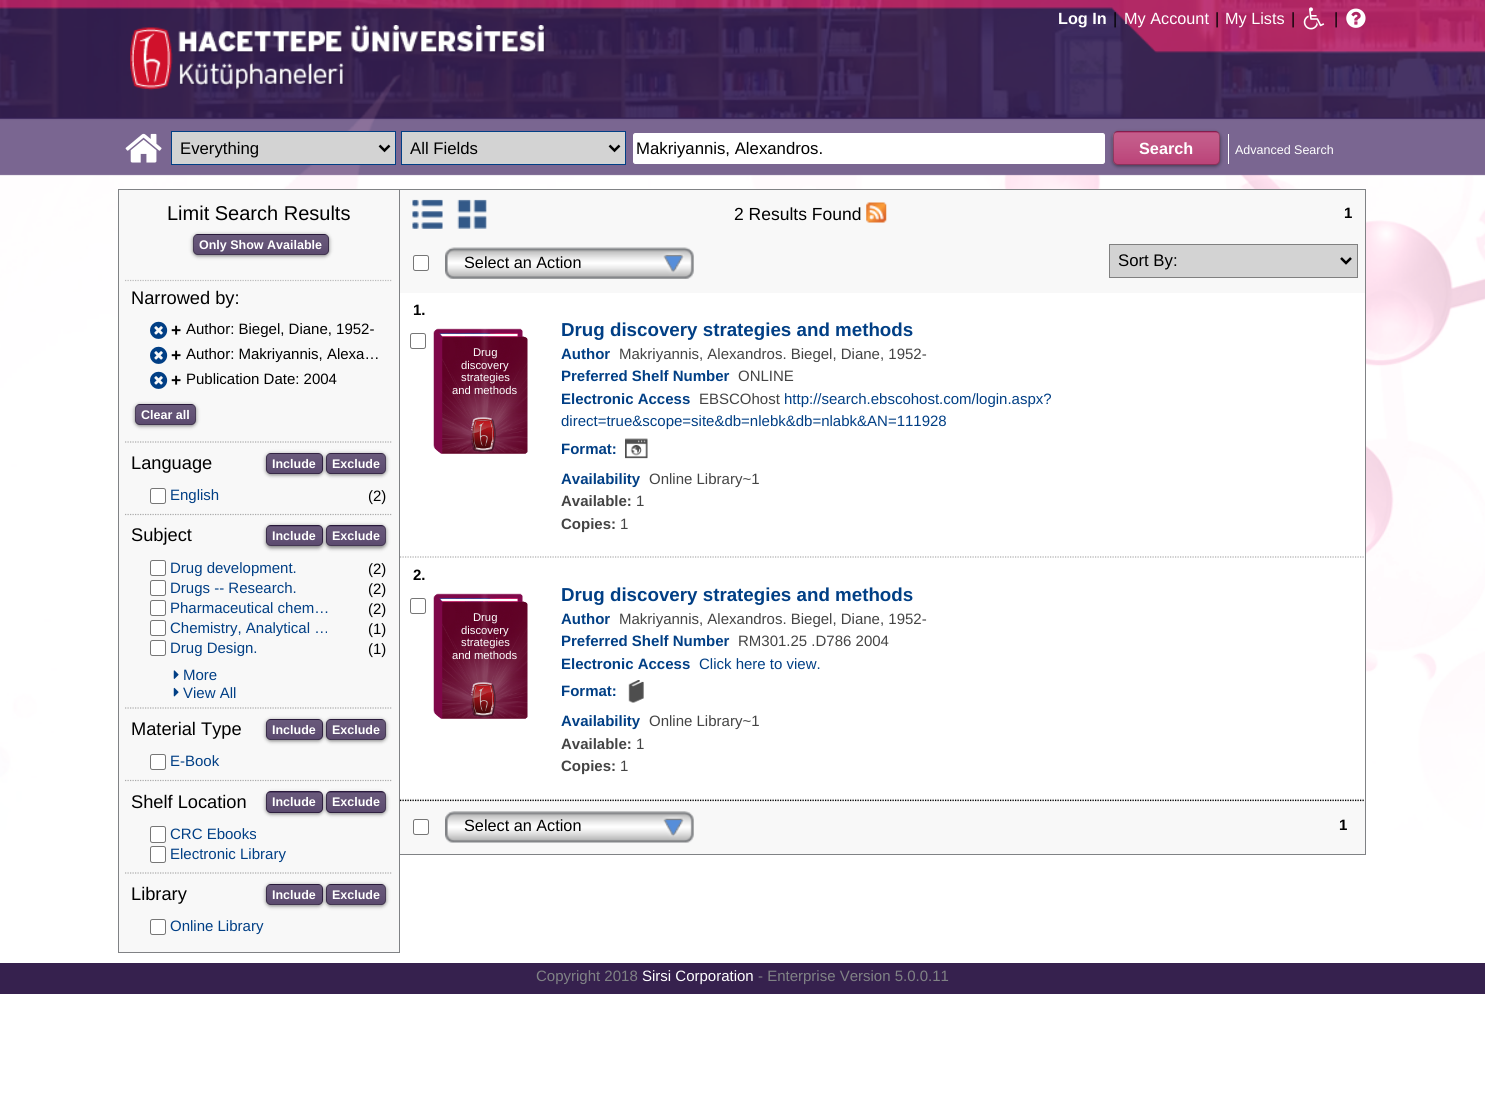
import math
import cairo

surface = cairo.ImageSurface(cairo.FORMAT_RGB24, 1485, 1112)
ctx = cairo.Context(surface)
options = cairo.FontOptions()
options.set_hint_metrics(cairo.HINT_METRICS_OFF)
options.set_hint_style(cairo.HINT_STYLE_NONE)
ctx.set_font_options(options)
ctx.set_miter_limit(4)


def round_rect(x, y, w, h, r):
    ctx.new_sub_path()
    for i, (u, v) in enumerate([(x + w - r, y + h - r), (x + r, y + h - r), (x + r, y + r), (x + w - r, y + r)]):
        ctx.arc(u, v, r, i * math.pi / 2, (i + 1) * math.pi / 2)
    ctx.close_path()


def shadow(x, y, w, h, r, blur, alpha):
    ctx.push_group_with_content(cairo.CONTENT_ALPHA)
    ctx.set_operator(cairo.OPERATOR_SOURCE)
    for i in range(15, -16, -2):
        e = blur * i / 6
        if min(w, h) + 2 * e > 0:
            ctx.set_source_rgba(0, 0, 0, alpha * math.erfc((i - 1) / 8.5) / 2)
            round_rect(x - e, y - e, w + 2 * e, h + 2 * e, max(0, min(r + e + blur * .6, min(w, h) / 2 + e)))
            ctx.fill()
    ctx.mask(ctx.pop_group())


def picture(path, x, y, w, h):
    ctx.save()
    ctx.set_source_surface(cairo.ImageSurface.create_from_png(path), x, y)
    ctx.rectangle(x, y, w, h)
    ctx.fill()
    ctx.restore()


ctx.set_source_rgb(1, 1, 1)
ctx.paint()
picture("img1.png", 0, 0, 1485, 830)
ctx.select_font_face("Liberation Sans", cairo.FONT_SLANT_NORMAL, cairo.FONT_WEIGHT_BOLD)
ctx.set_font_size(16.25)
ctx.set_source_rgb(1, 1, 1)
ctx.move_to(1058, 24)
ctx.show_text("Log In")
ctx.select_font_face("Liberation Sans")
ctx.set_source_rgb(0, 0, 0)
ctx.move_to(1113, 24)
ctx.show_text("|")
ctx.set_source_rgb(1, 1, 1)
ctx.move_to(1124, 24)
ctx.show_text("My Account")
ctx.set_source_rgb(0, 0, 0)
ctx.move_to(1215, 24)
ctx.show_text("|")
ctx.set_source_rgb(1, 1, 1)
ctx.move_to(1225, 24)
ctx.show_text("My Lists")
ctx.set_source_rgb(0, 0, 0)
ctx.move_to(1291, 24)
ctx.show_text("|")
picture("img2.png", 1303, 7, 22, 23)
ctx.move_to(1334, 24)
ctx.show_text("|")
picture("img3.png", 1346, 8, 20, 20)
picture("img4.png", 130, 25, 416, 66)
picture("img5.png", 125, 133, 37, 30)
ctx.set_source_rgb(0.827, 0.827, 0.827)
ctx.rectangle(171.5, 131.5, 224, 33)
ctx.fill_preserve()
ctx.set_source_rgb(0.004, 0.247, 0.522)
ctx.set_line_width(1)
ctx.stroke()
ctx.new_path()
ctx.move_to(379.5, 145.5)
ctx.line_to(384.5, 150.5)
ctx.line_to(389.5, 145.5)
ctx.set_source_rgb(0, 0, 0)
ctx.set_line_width(2.5)
ctx.stroke()
ctx.set_font_size(16.75)
ctx.move_to(180, 154)
ctx.show_text("Everything")
ctx.set_source_rgb(0.827, 0.827, 0.827)
ctx.rectangle(401.5, 131.5, 224, 33)
ctx.fill_preserve()
ctx.set_source_rgb(0.004, 0.247, 0.522)
ctx.set_line_width(1)
ctx.stroke()
ctx.new_path()
ctx.move_to(609.5, 145.5)
ctx.line_to(614.5, 150.5)
ctx.line_to(619.5, 145.5)
ctx.set_source_rgb(0, 0, 0)
ctx.set_line_width(2.5)
ctx.stroke()
ctx.move_to(410, 154)
ctx.show_text("All Fields")
ctx.set_source_rgb(1, 1, 1)
round_rect(633.5, 133.5, 471, 30, 2)
ctx.fill_preserve()
ctx.set_line_width(1)
ctx.stroke()
ctx.set_source_rgb(0, 0, 0)
ctx.move_to(636, 154)
ctx.show_text("Makriyannis, Alexandros.")
ctx.set_source_rgb(0, 0, 0)
shadow(1113, 133, 107, 33, 5, 2, 0.5)
ctx.set_source_rgb(0.694, 0.157, 0.396)
round_rect(1113, 131, 107, 34, 5)
ctx.fill()
picture("img6.png", 1112, 132, 108, 33)
round_rect(1113.5, 131.5, 106, 33, 4.5)
ctx.set_source_rgba(0, 0, 0, 0.25)
ctx.stroke()
ctx.select_font_face("Liberation Sans", cairo.FONT_SLANT_NORMAL, cairo.FONT_WEIGHT_BOLD)
ctx.set_font_size(16.25)
ctx.set_source_rgb(1, 1, 1)
ctx.move_to(1139, 154)
ctx.show_text("Search")
ctx.rectangle(1228, 134, 1, 30)
ctx.fill()
ctx.select_font_face("Liberation Sans")
ctx.set_font_size(12.5)
ctx.move_to(1235, 154)
ctx.show_text("Advanced Search")
ctx.set_source_rgb(0.969, 0.969, 0.969)
ctx.rectangle(118.5, 189.5, 281, 763)
ctx.fill_preserve()
ctx.set_source_rgb(0.502, 0.51, 0.522)
ctx.stroke()
ctx.set_font_size(20)
ctx.set_source_rgb(0, 0, 0)
ctx.move_to(167, 220)
ctx.show_text("Limit Search Results")
ctx.set_source_rgb(0, 0, 0)
shadow(193, 235, 136, 21, 5, 2, 0.5)
ctx.set_source_rgb(0.212, 0.129, 0.306)
round_rect(193, 234, 136, 21, 5)
ctx.fill()
picture("img7.png", 193, 235, 136, 20)
round_rect(193.5, 234.5, 135, 20, 4.5)
ctx.set_source_rgba(0, 0, 0, 0.25)
ctx.stroke()
ctx.select_font_face("Liberation Sans", cairo.FONT_SLANT_NORMAL, cairo.FONT_WEIGHT_BOLD)
ctx.set_font_size(12.5)
ctx.set_source_rgb(1, 1, 1)
ctx.move_to(199, 249)
ctx.show_text("Only Show Available")
ctx.new_path()
ctx.move_to(125, 280.5)
ctx.line_to(392.5, 280.5)
ctx.set_source_rgb(0.733, 0.733, 0.733)
ctx.set_line_width(1.2)
ctx.set_dash([1.25, 1.25])
ctx.stroke()
ctx.select_font_face("Liberation Sans")
ctx.set_font_size(18.25)
ctx.set_source_rgb(0, 0, 0)
ctx.move_to(131, 304)
ctx.show_text("Narrowed by:")
picture("img8.png", 150, 321, 18, 18)
ctx.select_font_face("Liberation Sans", cairo.FONT_SLANT_NORMAL, cairo.FONT_WEIGHT_BOLD)
ctx.set_font_size(17.5)
ctx.move_to(171, 336)
ctx.show_text("+")
ctx.select_font_face("Liberation Sans")
ctx.set_font_size(15)
ctx.move_to(186, 334)
ctx.show_text("Author: Biegel, Diane, 1952-")
picture("img8.png", 150, 346, 18, 18)
ctx.select_font_face("Liberation Sans", cairo.FONT_SLANT_NORMAL, cairo.FONT_WEIGHT_BOLD)
ctx.set_font_size(17.5)
ctx.move_to(171, 361)
ctx.show_text("+")
ctx.select_font_face("Liberation Sans")
ctx.set_font_size(15)
ctx.move_to(186, 359)
ctx.show_text("Author: Makriyannis, Alexa…")
picture("img8.png", 150, 371, 18, 18)
ctx.select_font_face("Liberation Sans", cairo.FONT_SLANT_NORMAL, cairo.FONT_WEIGHT_BOLD)
ctx.set_font_size(17.5)
ctx.move_to(171, 386)
ctx.show_text("+")
ctx.select_font_face("Liberation Sans")
ctx.set_font_size(15)
ctx.move_to(186, 384)
ctx.show_text("Publication Date: 2004")
ctx.set_source_rgb(0, 0, 0)
shadow(135, 405, 61, 21, 5, 2, 0.5)
ctx.set_source_rgb(0.212, 0.129, 0.306)
round_rect(135, 404, 61, 21, 5)
ctx.fill()
picture("img9.png", 135, 405, 61, 20)
round_rect(135.5, 404.5, 60, 20, 4.5)
ctx.set_source_rgba(0, 0, 0, 0.25)
ctx.set_line_width(1)
ctx.set_dash([])
ctx.stroke()
ctx.select_font_face("Liberation Sans", cairo.FONT_SLANT_NORMAL, cairo.FONT_WEIGHT_BOLD)
ctx.set_font_size(12.5)
ctx.set_source_rgb(1, 1, 1)
ctx.move_to(141, 419)
ctx.show_text("Clear all")
ctx.new_path()
ctx.move_to(125, 442)
ctx.line_to(392.5, 442)
ctx.set_source_rgb(0.667, 0.667, 0.667)
ctx.set_line_width(1.2)
ctx.set_dash([1.25, 1.25])
ctx.stroke()
ctx.select_font_face("Liberation Sans")
ctx.set_font_size(18.25)
ctx.set_source_rgb(0, 0, 0)
ctx.move_to(131, 469)
ctx.show_text("Language")
ctx.set_source_rgb(0, 0, 0)
shadow(266, 454, 57, 21, 5, 2, 0.5)
ctx.set_source_rgb(0.212, 0.129, 0.306)
round_rect(266, 453, 57, 21, 5)
ctx.fill()
picture("img10.png", 266, 453, 57, 21)
round_rect(266.5, 453.5, 56, 20, 4.5)
ctx.set_source_rgba(0, 0, 0, 0.25)
ctx.set_line_width(1)
ctx.set_dash([])
ctx.stroke()
ctx.select_font_face("Liberation Sans", cairo.FONT_SLANT_NORMAL, cairo.FONT_WEIGHT_BOLD)
ctx.set_font_size(12.5)
ctx.set_source_rgb(1, 1, 1)
ctx.move_to(272, 468)
ctx.show_text("Include")
ctx.set_source_rgb(0, 0, 0)
shadow(326, 454, 60, 21, 5, 2, 0.5)
ctx.set_source_rgb(0.212, 0.129, 0.306)
round_rect(326, 453, 60, 21, 5)
ctx.fill()
picture("img11.png", 326, 453, 60, 21)
round_rect(326.5, 453.5, 59, 20, 4.5)
ctx.set_source_rgba(0, 0, 0, 0.25)
ctx.stroke()
ctx.set_source_rgb(1, 1, 1)
ctx.move_to(332, 468)
ctx.show_text("Exclude")
round_rect(150.5, 488.5, 15, 15, 2)
ctx.fill_preserve()
ctx.set_source_rgb(0.463, 0.463, 0.463)
ctx.stroke()
ctx.select_font_face("Liberation Sans")
ctx.set_font_size(15)
ctx.set_source_rgb(0.004, 0.247, 0.522)
ctx.move_to(170, 500)
ctx.show_text("English")
ctx.set_source_rgb(0, 0, 0)
ctx.move_to(368, 501)
ctx.show_text("(2)")
ctx.new_path()
ctx.move_to(125, 514.5)
ctx.line_to(392.5, 514.5)
ctx.set_source_rgb(0.667, 0.667, 0.667)
ctx.set_line_width(1.2)
ctx.set_dash([1.25, 1.25])
ctx.stroke()
ctx.set_font_size(18.25)
ctx.set_source_rgb(0, 0, 0)
ctx.move_to(131, 541)
ctx.show_text("Subject")
ctx.set_source_rgb(0, 0, 0)
shadow(266, 526, 57, 22, 5, 2, 0.5)
ctx.set_source_rgb(0.212, 0.129, 0.306)
round_rect(266, 525, 57, 21, 5)
ctx.fill()
picture("img12.png", 266, 526, 57, 20)
round_rect(266.5, 525.5, 56, 20, 4.5)
ctx.set_source_rgba(0, 0, 0, 0.25)
ctx.set_line_width(1)
ctx.set_dash([])
ctx.stroke()
ctx.select_font_face("Liberation Sans", cairo.FONT_SLANT_NORMAL, cairo.FONT_WEIGHT_BOLD)
ctx.set_font_size(12.5)
ctx.set_source_rgb(1, 1, 1)
ctx.move_to(272, 540)
ctx.show_text("Include")
ctx.set_source_rgb(0, 0, 0)
shadow(326, 526, 60, 22, 5, 2, 0.5)
ctx.set_source_rgb(0.212, 0.129, 0.306)
round_rect(326, 525, 60, 21, 5)
ctx.fill()
picture("img13.png", 326, 526, 60, 20)
round_rect(326.5, 525.5, 59, 20, 4.5)
ctx.set_source_rgba(0, 0, 0, 0.25)
ctx.stroke()
ctx.set_source_rgb(1, 1, 1)
ctx.move_to(332, 540)
ctx.show_text("Exclude")
round_rect(150.5, 560.5, 15, 15, 2)
ctx.fill_preserve()
ctx.set_source_rgb(0.463, 0.463, 0.463)
ctx.stroke()
ctx.select_font_face("Liberation Sans")
ctx.set_font_size(15)
ctx.set_source_rgb(0.004, 0.247, 0.522)
ctx.move_to(170, 573)
ctx.show_text("Drug development.")
ctx.set_source_rgb(0, 0, 0)
ctx.move_to(368, 574)
ctx.show_text("(2)")
ctx.set_source_rgb(1, 1, 1)
round_rect(150.5, 580.5, 15, 15, 2)
ctx.fill_preserve()
ctx.set_source_rgb(0.463, 0.463, 0.463)
ctx.stroke()
ctx.set_source_rgb(0.004, 0.247, 0.522)
ctx.move_to(170, 593)
ctx.show_text("Drugs -- Research.")
ctx.set_source_rgb(0, 0, 0)
ctx.move_to(368, 594)
ctx.show_text("(2)")
ctx.set_source_rgb(1, 1, 1)
round_rect(150.5, 600.5, 15, 15, 2)
ctx.fill_preserve()
ctx.set_source_rgb(0.463, 0.463, 0.463)
ctx.stroke()
ctx.set_source_rgb(0.004, 0.247, 0.522)
ctx.move_to(170, 613)
ctx.show_text("Pharmaceutical chem…")
ctx.set_source_rgb(0, 0, 0)
ctx.move_to(368, 614)
ctx.show_text("(2)")
ctx.set_source_rgb(1, 1, 1)
round_rect(150.5, 620.5, 15, 15, 2)
ctx.fill_preserve()
ctx.set_source_rgb(0.463, 0.463, 0.463)
ctx.stroke()
ctx.set_source_rgb(0.004, 0.247, 0.522)
ctx.move_to(170, 633)
ctx.show_text("Chemistry, Analytical …")
ctx.set_source_rgb(0, 0, 0)
ctx.move_to(368, 634)
ctx.show_text("(1)")
ctx.set_source_rgb(1, 1, 1)
round_rect(150.5, 640.5, 15, 15, 2)
ctx.fill_preserve()
ctx.set_source_rgb(0.463, 0.463, 0.463)
ctx.stroke()
ctx.set_source_rgb(0.004, 0.247, 0.522)
ctx.move_to(170, 653)
ctx.show_text("Drug Design.")
ctx.set_source_rgb(0, 0, 0)
ctx.move_to(368, 654)
ctx.show_text("(1)")
picture("img14.png", 173, 670, 6, 9)
ctx.set_source_rgb(0.004, 0.247, 0.522)
ctx.move_to(183, 680)
ctx.show_text("More")
picture("img15.png", 173, 687, 6, 10)
ctx.move_to(183, 698)
ctx.show_text("View All")
ctx.new_path()
ctx.move_to(125, 708)
ctx.line_to(392.5, 708)
ctx.set_source_rgb(0.667, 0.667, 0.667)
ctx.set_line_width(1.2)
ctx.set_dash([1.25, 1.25])
ctx.stroke()
ctx.set_font_size(18.25)
ctx.set_source_rgb(0, 0, 0)
ctx.move_to(131, 735)
ctx.show_text("Material Type")
ctx.set_source_rgb(0, 0, 0)
shadow(266, 720, 57, 21, 5, 2, 0.5)
ctx.set_source_rgb(0.212, 0.129, 0.306)
round_rect(266, 719, 57, 21, 5)
ctx.fill()
picture("img16.png", 266, 720, 57, 20)
round_rect(266.5, 719.5, 56, 20, 4.5)
ctx.set_source_rgba(0, 0, 0, 0.25)
ctx.set_line_width(1)
ctx.set_dash([])
ctx.stroke()
ctx.select_font_face("Liberation Sans", cairo.FONT_SLANT_NORMAL, cairo.FONT_WEIGHT_BOLD)
ctx.set_font_size(12.5)
ctx.set_source_rgb(1, 1, 1)
ctx.move_to(272, 734)
ctx.show_text("Include")
ctx.set_source_rgb(0, 0, 0)
shadow(326, 720, 60, 21, 5, 2, 0.5)
ctx.set_source_rgb(0.212, 0.129, 0.306)
round_rect(326, 719, 60, 21, 5)
ctx.fill()
picture("img17.png", 326, 720, 60, 20)
round_rect(326.5, 719.5, 59, 20, 4.5)
ctx.set_source_rgba(0, 0, 0, 0.25)
ctx.stroke()
ctx.set_source_rgb(1, 1, 1)
ctx.move_to(332, 734)
ctx.show_text("Exclude")
round_rect(150.5, 754.5, 15, 15, 2)
ctx.fill_preserve()
ctx.set_source_rgb(0.463, 0.463, 0.463)
ctx.stroke()
ctx.select_font_face("Liberation Sans")
ctx.set_font_size(15)
ctx.set_source_rgb(0.004, 0.247, 0.522)
ctx.move_to(170, 766)
ctx.show_text("E-Book")
ctx.new_path()
ctx.move_to(125, 780.5)
ctx.line_to(392.5, 780.5)
ctx.set_source_rgb(0.667, 0.667, 0.667)
ctx.set_line_width(1.2)
ctx.set_dash([1.25, 1.25])
ctx.stroke()
ctx.set_font_size(18.25)
ctx.set_source_rgb(0, 0, 0)
ctx.move_to(131, 808)
ctx.show_text("Shelf Location")
ctx.set_source_rgb(0, 0, 0)
shadow(266, 793, 57, 21, 5, 2, 0.5)
ctx.set_source_rgb(0.212, 0.129, 0.306)
round_rect(266, 791, 57, 22, 5)
ctx.fill()
picture("img18.png", 266, 792, 57, 21)
round_rect(266.5, 791.5, 56, 21, 4.5)
ctx.set_source_rgba(0, 0, 0, 0.25)
ctx.set_line_width(1)
ctx.set_dash([])
ctx.stroke()
ctx.select_font_face("Liberation Sans", cairo.FONT_SLANT_NORMAL, cairo.FONT_WEIGHT_BOLD)
ctx.set_font_size(12.5)
ctx.set_source_rgb(1, 1, 1)
ctx.move_to(272, 806)
ctx.show_text("Include")
ctx.set_source_rgb(0, 0, 0)
shadow(326, 793, 60, 21, 5, 2, 0.5)
ctx.set_source_rgb(0.212, 0.129, 0.306)
round_rect(326, 791, 60, 22, 5)
ctx.fill()
picture("img19.png", 326, 792, 60, 21)
round_rect(326.5, 791.5, 59, 21, 4.5)
ctx.set_source_rgba(0, 0, 0, 0.25)
ctx.stroke()
ctx.set_source_rgb(1, 1, 1)
ctx.move_to(332, 806)
ctx.show_text("Exclude")
round_rect(150.5, 826.5, 15, 16, 2)
ctx.fill_preserve()
ctx.set_source_rgb(0.463, 0.463, 0.463)
ctx.stroke()
ctx.select_font_face("Liberation Sans")
ctx.set_font_size(15)
ctx.set_source_rgb(0.004, 0.247, 0.522)
ctx.move_to(170, 839)
ctx.show_text("CRC Ebooks")
ctx.set_source_rgb(1, 1, 1)
round_rect(150.5, 846.5, 15, 16, 2)
ctx.fill_preserve()
ctx.set_source_rgb(0.463, 0.463, 0.463)
ctx.stroke()
ctx.set_source_rgb(0.004, 0.247, 0.522)
ctx.move_to(170, 859)
ctx.show_text("Electronic Library")
ctx.new_path()
ctx.move_to(125, 873)
ctx.line_to(392.5, 873)
ctx.set_source_rgb(0.667, 0.667, 0.667)
ctx.set_line_width(1.2)
ctx.set_dash([1.25, 1.25])
ctx.stroke()
ctx.set_font_size(18.25)
ctx.set_source_rgb(0, 0, 0)
ctx.move_to(131, 900)
ctx.show_text("Library")
ctx.set_source_rgb(0, 0, 0)
shadow(266, 885, 57, 21, 5, 2, 0.5)
ctx.set_source_rgb(0.212, 0.129, 0.306)
round_rect(266, 884, 57, 21, 5)
ctx.fill()
picture("img16.png", 266, 885, 57, 20)
round_rect(266.5, 884.5, 56, 20, 4.5)
ctx.set_source_rgba(0, 0, 0, 0.25)
ctx.set_line_width(1)
ctx.set_dash([])
ctx.stroke()
ctx.select_font_face("Liberation Sans", cairo.FONT_SLANT_NORMAL, cairo.FONT_WEIGHT_BOLD)
ctx.set_font_size(12.5)
ctx.set_source_rgb(1, 1, 1)
ctx.move_to(272, 899)
ctx.show_text("Include")
ctx.set_source_rgb(0, 0, 0)
shadow(326, 885, 60, 21, 5, 2, 0.5)
ctx.set_source_rgb(0.212, 0.129, 0.306)
round_rect(326, 884, 60, 21, 5)
ctx.fill()
picture("img17.png", 326, 885, 60, 20)
round_rect(326.5, 884.5, 59, 20, 4.5)
ctx.set_source_rgba(0, 0, 0, 0.25)
ctx.stroke()
ctx.set_source_rgb(1, 1, 1)
ctx.move_to(332, 899)
ctx.show_text("Exclude")
round_rect(150.5, 919.5, 15, 15, 2)
ctx.fill_preserve()
ctx.set_source_rgb(0.463, 0.463, 0.463)
ctx.stroke()
ctx.select_font_face("Liberation Sans")
ctx.set_font_size(15)
ctx.set_source_rgb(0.004, 0.247, 0.522)
ctx.move_to(170, 931)
ctx.show_text("Online Library")
ctx.set_source_rgb(0.969, 0.969, 0.969)
ctx.rectangle(399.5, 189.5, 966, 665)
ctx.fill_preserve()
ctx.set_source_rgb(0.502, 0.51, 0.522)
ctx.stroke()
picture("img20.png", 412, 199, 31, 30)
picture("img21.png", 457, 199, 30, 30)
ctx.set_source_rgb(1, 1, 1)
round_rect(413.5, 255.5, 15, 15, 2)
ctx.fill_preserve()
ctx.set_source_rgb(0.463, 0.463, 0.463)
ctx.stroke()
picture("img22.png", 445, 247, 249, 32)
ctx.set_font_size(16.25)
ctx.set_source_rgb(0, 0, 0)
ctx.move_to(464, 268)
ctx.show_text("Select an Action")
ctx.set_font_size(17.5)
ctx.move_to(734, 220)
ctx.show_text("2 Results Found")
picture("img23.png", 866, 202, 21, 21)
ctx.select_font_face("Liberation Sans", cairo.FONT_SLANT_NORMAL, cairo.FONT_WEIGHT_BOLD)
ctx.set_font_size(15)
ctx.move_to(1344, 218)
ctx.show_text("1")
ctx.set_source_rgb(0.827, 0.827, 0.827)
ctx.rectangle(1109.5, 244.5, 248, 33)
ctx.fill_preserve()
ctx.set_source_rgb(0.502, 0.502, 0.502)
ctx.stroke()
ctx.new_path()
ctx.move_to(1341, 258)
ctx.line_to(1346, 263)
ctx.line_to(1351, 258)
ctx.set_source_rgb(0, 0, 0)
ctx.set_line_width(2.5)
ctx.stroke()
ctx.select_font_face("Liberation Sans")
ctx.set_font_size(16.75)
ctx.move_to(1118, 266)
ctx.show_text("Sort By:")
ctx.set_source_rgb(1, 1, 1)
ctx.rectangle(400, 293, 965, 507)
ctx.fill()
ctx.new_path()
ctx.move_to(400, 557)
ctx.line_to(1365, 557)
ctx.set_source_rgb(0.675, 0.675, 0.675)
ctx.set_line_width(1.2)
ctx.set_dash([1.25, 1.25])
ctx.stroke()
ctx.select_font_face("Liberation Sans", cairo.FONT_SLANT_NORMAL, cairo.FONT_WEIGHT_BOLD)
ctx.set_font_size(15)
ctx.set_source_rgb(0, 0, 0)
ctx.move_to(413, 315)
ctx.show_text("1.")
round_rect(410.5, 333.5, 15, 15, 2)
ctx.set_source_rgb(0.463, 0.463, 0.463)
ctx.set_line_width(1)
ctx.set_dash([])
ctx.stroke()
picture("img24.png", 433, 328, 95, 126)
ctx.select_font_face("Liberation Sans")
ctx.set_font_size(11.25)
ctx.set_source_rgb(1, 1, 1)
ctx.move_to(473, 356)
ctx.show_text("Drug")
ctx.move_to(461, 369)
ctx.show_text("discovery")
ctx.move_to(461, 381)
ctx.show_text("strategies")
ctx.move_to(452, 394)
ctx.show_text("and methods")
ctx.select_font_face("Liberation Sans", cairo.FONT_SLANT_NORMAL, cairo.FONT_WEIGHT_BOLD)
ctx.set_font_size(18.75)
ctx.set_source_rgb(0.004, 0.247, 0.522)
ctx.move_to(561, 336)
ctx.show_text("Drug discovery strategies and methods")
ctx.set_font_size(15)
ctx.move_to(561, 359)
ctx.show_text("Author")
ctx.select_font_face("Liberation Sans")
ctx.set_source_rgb(0.267, 0.267, 0.267)
ctx.move_to(619, 359)
ctx.show_text("Makriyannis, Alexandros. Biegel, Diane, 1952-")
ctx.select_font_face("Liberation Sans", cairo.FONT_SLANT_NORMAL, cairo.FONT_WEIGHT_BOLD)
ctx.set_source_rgb(0.004, 0.247, 0.522)
ctx.move_to(561, 381)
ctx.show_text("Preferred Shelf Number")
ctx.select_font_face("Liberation Sans")
ctx.set_source_rgb(0.267, 0.267, 0.267)
ctx.move_to(738, 381)
ctx.show_text("ONLINE")
ctx.select_font_face("Liberation Sans", cairo.FONT_SLANT_NORMAL, cairo.FONT_WEIGHT_BOLD)
ctx.set_source_rgb(0.004, 0.247, 0.522)
ctx.move_to(561, 404)
ctx.show_text("Electronic Access")
ctx.select_font_face("Liberation Sans")
ctx.set_source_rgb(0.267, 0.267, 0.267)
ctx.move_to(699, 404)
ctx.show_text("EBSCOhost")
ctx.set_source_rgb(0.004, 0.247, 0.522)
ctx.move_to(784, 404)
ctx.show_text("http://search.ebscohost.com/login.aspx?")
ctx.move_to(561, 426)
ctx.show_text("direct=true&scope=site&db=nlebk&db=nlabk&AN=111928")
ctx.select_font_face("Liberation Sans", cairo.FONT_SLANT_NORMAL, cairo.FONT_WEIGHT_BOLD)
ctx.move_to(561, 454)
ctx.show_text("Format:")
picture("img25.png", 625, 438, 23, 21)
ctx.move_to(561, 484)
ctx.show_text("Availability")
ctx.select_font_face("Liberation Sans")
ctx.set_source_rgb(0.267, 0.267, 0.267)
ctx.move_to(649, 484)
ctx.show_text("Online Library~1")
ctx.select_font_face("Liberation Sans", cairo.FONT_SLANT_NORMAL, cairo.FONT_WEIGHT_BOLD)
ctx.move_to(561, 506)
ctx.show_text("Available:")
ctx.select_font_face("Liberation Sans")
ctx.move_to(636, 506)
ctx.show_text("1")
ctx.select_font_face("Liberation Sans", cairo.FONT_SLANT_NORMAL, cairo.FONT_WEIGHT_BOLD)
ctx.move_to(561, 529)
ctx.show_text("Copies:")
ctx.select_font_face("Liberation Sans")
ctx.move_to(620, 529)
ctx.show_text("1")
ctx.new_path()
ctx.move_to(400, 799.5)
ctx.line_to(1365, 799.5)
ctx.set_source_rgb(0.675, 0.675, 0.675)
ctx.set_line_width(1.2)
ctx.set_dash([1.25, 1.25])
ctx.stroke()
ctx.select_font_face("Liberation Sans", cairo.FONT_SLANT_NORMAL, cairo.FONT_WEIGHT_BOLD)
ctx.set_source_rgb(0, 0, 0)
ctx.move_to(413, 580)
ctx.show_text("2.")
round_rect(410.5, 598.5, 15, 15, 2)
ctx.set_source_rgb(0.463, 0.463, 0.463)
ctx.set_line_width(1)
ctx.set_dash([])
ctx.stroke()
picture("img24.png", 433, 593, 95, 126)
ctx.select_font_face("Liberation Sans")
ctx.set_font_size(11.25)
ctx.set_source_rgb(1, 1, 1)
ctx.move_to(473, 621)
ctx.show_text("Drug")
ctx.move_to(461, 634)
ctx.show_text("discovery")
ctx.move_to(461, 646)
ctx.show_text("strategies")
ctx.move_to(452, 659)
ctx.show_text("and methods")
ctx.select_font_face("Liberation Sans", cairo.FONT_SLANT_NORMAL, cairo.FONT_WEIGHT_BOLD)
ctx.set_font_size(18.75)
ctx.set_source_rgb(0.004, 0.247, 0.522)
ctx.move_to(561, 601)
ctx.show_text("Drug discovery strategies and methods")
ctx.set_font_size(15)
ctx.move_to(561, 624)
ctx.show_text("Author")
ctx.select_font_face("Liberation Sans")
ctx.set_source_rgb(0.267, 0.267, 0.267)
ctx.move_to(619, 624)
ctx.show_text("Makriyannis, Alexandros. Biegel, Diane, 1952-")
ctx.select_font_face("Liberation Sans", cairo.FONT_SLANT_NORMAL, cairo.FONT_WEIGHT_BOLD)
ctx.set_source_rgb(0.004, 0.247, 0.522)
ctx.move_to(561, 646)
ctx.show_text("Preferred Shelf Number")
ctx.select_font_face("Liberation Sans")
ctx.set_source_rgb(0.267, 0.267, 0.267)
ctx.move_to(738, 646)
ctx.show_text("RM301.25 .D786 2004")
ctx.select_font_face("Liberation Sans", cairo.FONT_SLANT_NORMAL, cairo.FONT_WEIGHT_BOLD)
ctx.set_source_rgb(0.004, 0.247, 0.522)
ctx.move_to(561, 669)
ctx.show_text("Electronic Access")
ctx.select_font_face("Liberation Sans")
ctx.move_to(699, 669)
ctx.show_text("Click here to view.")
ctx.select_font_face("Liberation Sans", cairo.FONT_SLANT_NORMAL, cairo.FONT_WEIGHT_BOLD)
ctx.move_to(561, 696)
ctx.show_text("Format:")
picture("img26.png", 628, 680, 16, 23)
ctx.move_to(561, 726)
ctx.show_text("Availability")
ctx.select_font_face("Liberation Sans")
ctx.set_source_rgb(0.267, 0.267, 0.267)
ctx.move_to(649, 726)
ctx.show_text("Online Library~1")
ctx.select_font_face("Liberation Sans", cairo.FONT_SLANT_NORMAL, cairo.FONT_WEIGHT_BOLD)
ctx.move_to(561, 749)
ctx.show_text("Available:")
ctx.select_font_face("Liberation Sans")
ctx.move_to(636, 749)
ctx.show_text("1")
ctx.select_font_face("Liberation Sans", cairo.FONT_SLANT_NORMAL, cairo.FONT_WEIGHT_BOLD)
ctx.move_to(561, 771)
ctx.show_text("Copies:")
ctx.select_font_face("Liberation Sans")
ctx.move_to(620, 771)
ctx.show_text("1")
ctx.new_path()
ctx.move_to(400, 800.5)
ctx.line_to(1365, 800.5)
ctx.set_source_rgb(0, 0, 0)
ctx.set_line_width(1.2)
ctx.set_dash([1.25, 1.25])
ctx.stroke()
ctx.set_source_rgb(1, 1, 1)
round_rect(413.5, 819.5, 15, 15, 2)
ctx.fill_preserve()
ctx.set_source_rgb(0.463, 0.463, 0.463)
ctx.set_line_width(1)
ctx.set_dash([])
ctx.stroke()
picture("img27.png", 445, 811, 249, 32)
ctx.set_font_size(16.25)
ctx.set_source_rgb(0, 0, 0)
ctx.move_to(464, 831)
ctx.show_text("Select an Action")
ctx.select_font_face("Liberation Sans", cairo.FONT_SLANT_NORMAL, cairo.FONT_WEIGHT_BOLD)
ctx.set_font_size(15)
ctx.move_to(1339, 830)
ctx.show_text("1")
ctx.set_source_rgb(0.212, 0.129, 0.306)
ctx.rectangle(0, 963, 1485, 31)
ctx.fill()
ctx.select_font_face("Liberation Sans")
ctx.set_source_rgb(0.502, 0.51, 0.522)
ctx.move_to(536, 981)
ctx.show_text("Copyright 2018")
ctx.set_source_rgb(1, 1, 1)
ctx.move_to(642, 981)
ctx.show_text("Sirsi Corporation")
ctx.set_source_rgb(0.502, 0.51, 0.522)
ctx.move_to(758, 981)
ctx.show_text("- Enterprise Version 5.0.0.11")
surface.write_to_png("page.png")
